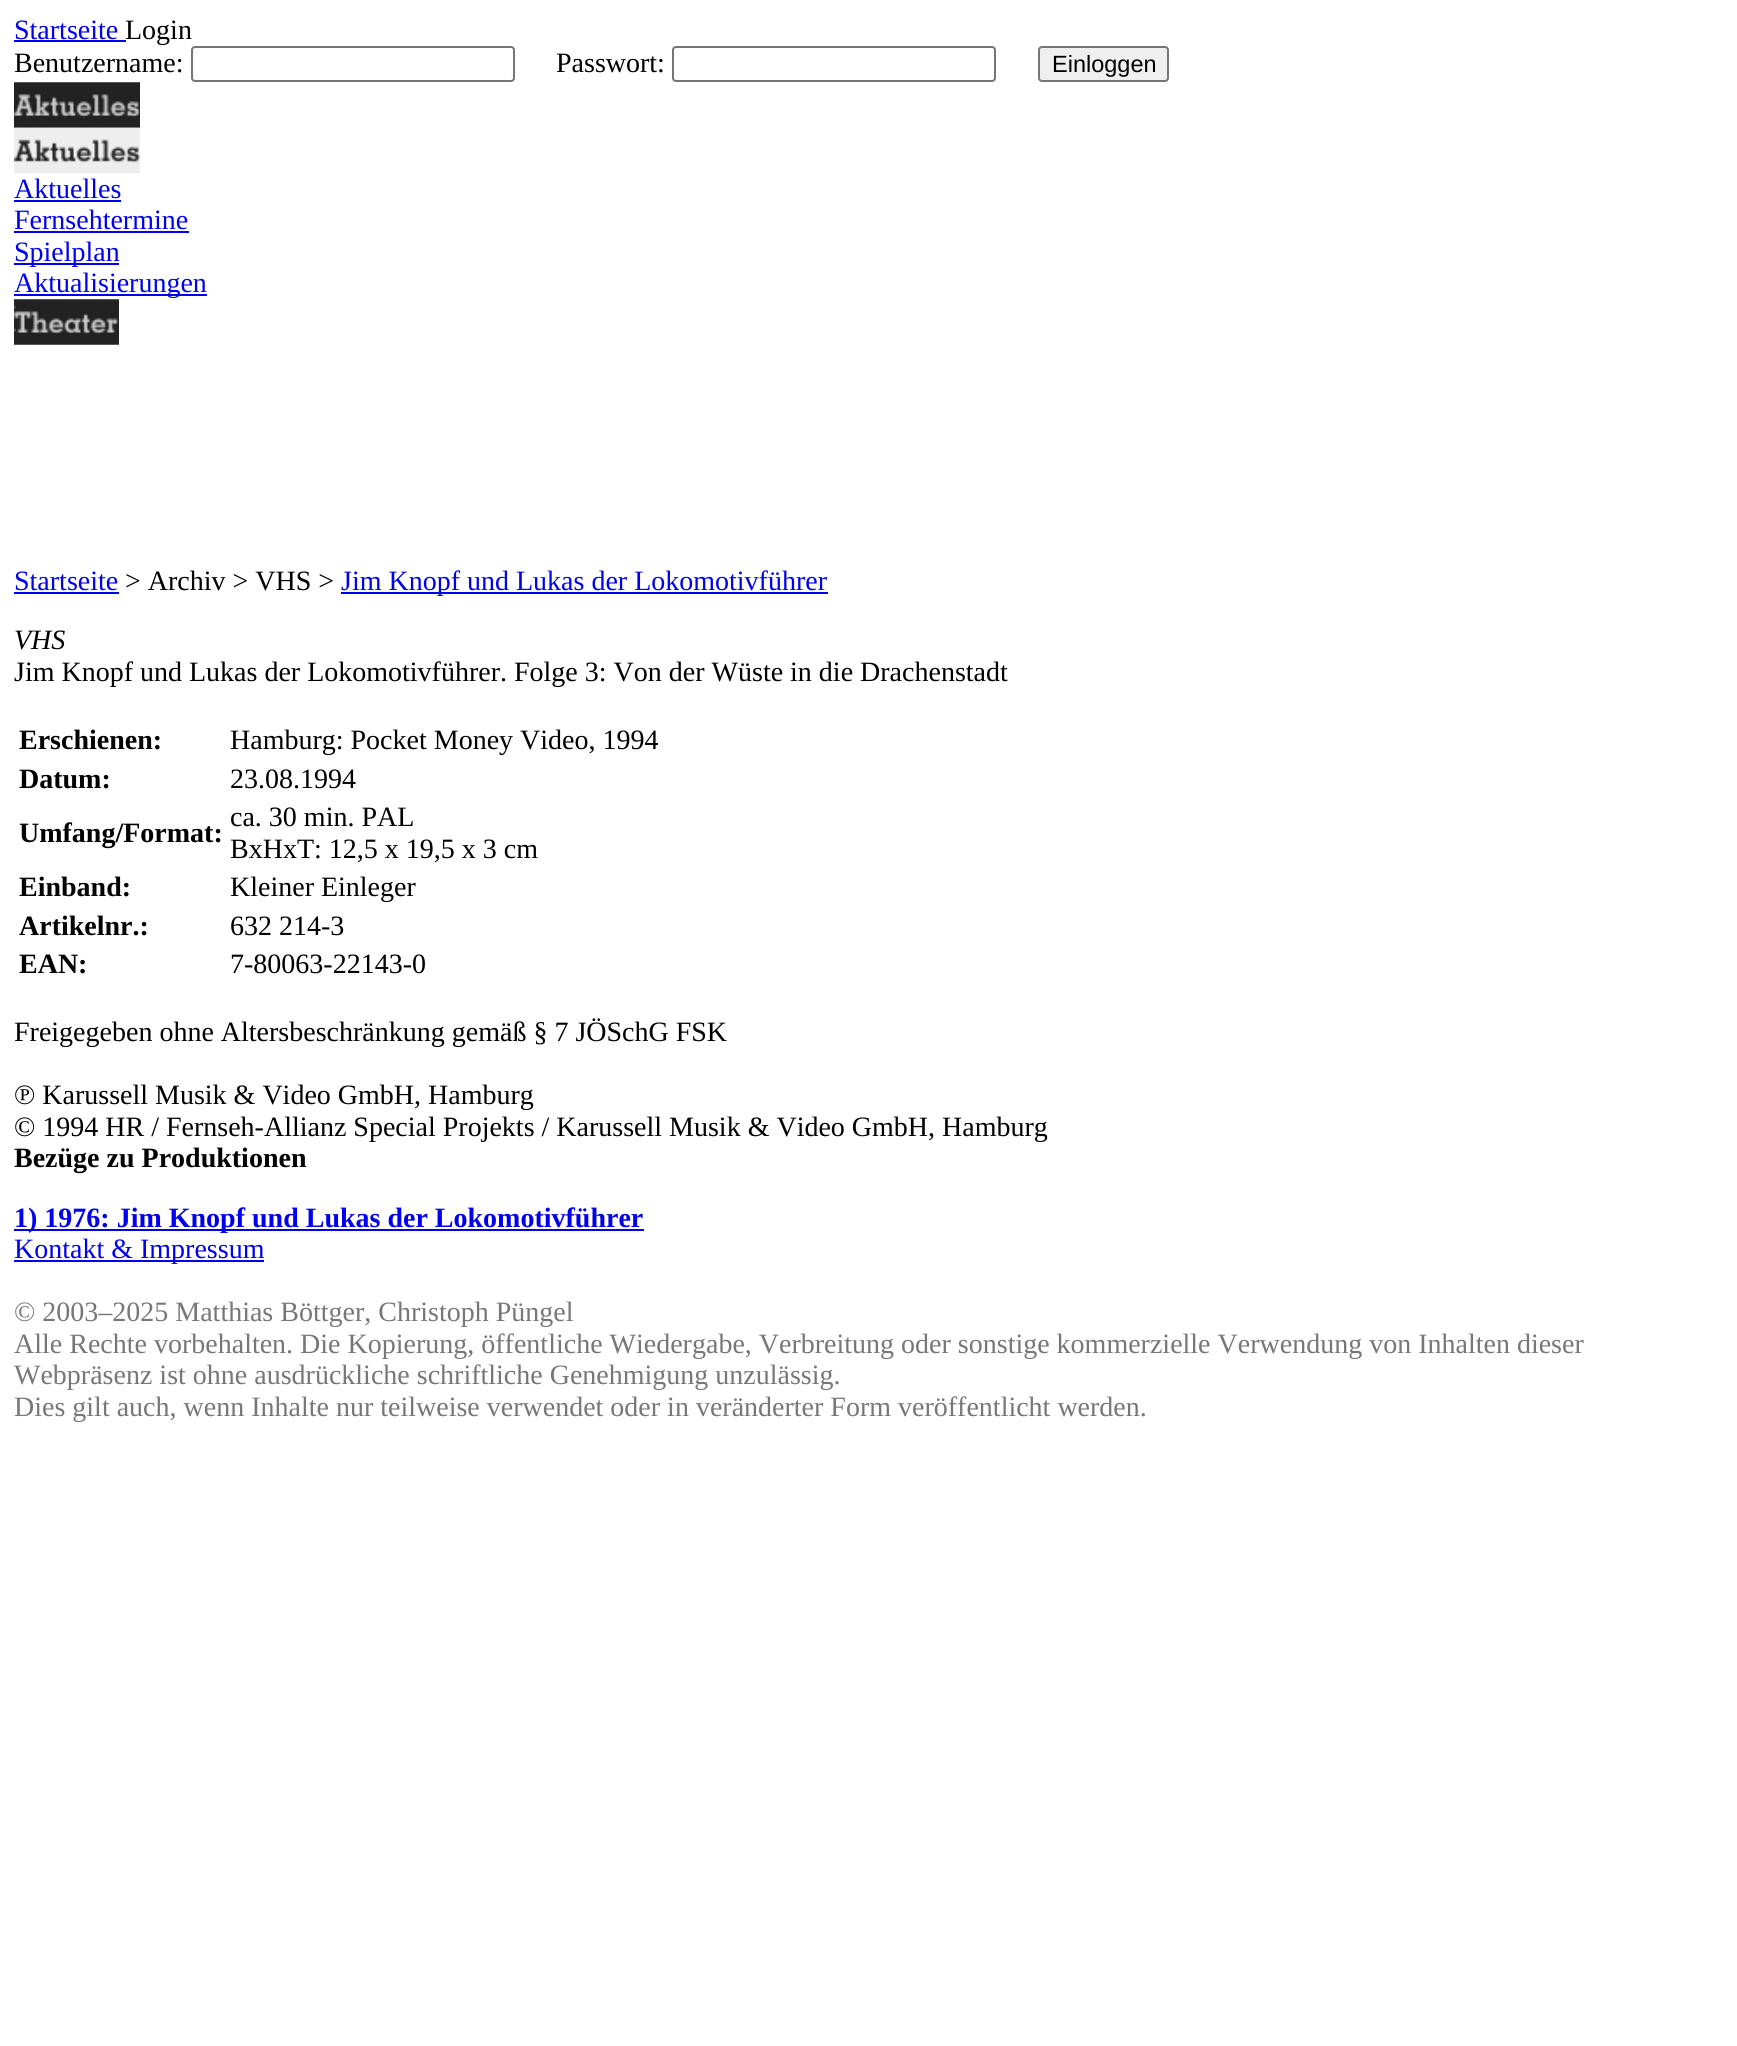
import math
import cairo

surface = cairo.ImageSurface(cairo.FORMAT_RGB24, 1737, 2046)
ctx = cairo.Context(surface)
options = cairo.FontOptions()
options.set_hint_metrics(cairo.HINT_METRICS_OFF)
options.set_hint_style(cairo.HINT_STYLE_NONE)
ctx.set_font_options(options)
ctx.set_miter_limit(4)


def round_rect(x, y, w, h, r):
    ctx.new_sub_path()
    for i, (u, v) in enumerate([(x + w - r, y + h - r), (x + r, y + h - r), (x + r, y + r), (x + w - r, y + r)]):
        ctx.arc(u, v, r, i * math.pi / 2, (i + 1) * math.pi / 2)
    ctx.close_path()


def picture(path, x, y, w, h):
    ctx.save()
    ctx.set_source_surface(cairo.ImageSurface.create_from_png(path), x, y)
    ctx.rectangle(x, y, w, h)
    ctx.fill()
    ctx.restore()


ctx.set_source_rgb(1, 1, 1)
ctx.paint()
ctx.select_font_face("Liberation Serif")
ctx.set_font_size(28)
ctx.set_source_rgb(0, 0, 0.933)
ctx.move_to(14, 39)
ctx.show_text("Startseite")
ctx.rectangle(14, 40, 112, 2)
ctx.fill()
ctx.set_source_rgb(0, 0, 0)
ctx.move_to(125, 39)
ctx.show_text("Login")
ctx.move_to(14, 72)
ctx.show_text("Benutzername:")
round_rect(192, 47, 322, 34, 3)
ctx.set_source_rgb(0.463, 0.463, 0.463)
ctx.stroke()
ctx.set_source_rgb(0, 0, 0)
ctx.move_to(556, 72)
ctx.show_text("Passwort:")
round_rect(673, 47, 322, 34, 3)
ctx.set_source_rgb(0.463, 0.463, 0.463)
ctx.stroke()
ctx.set_source_rgb(0.937, 0.937, 0.937)
round_rect(1039, 47, 129, 34, 3)
ctx.fill_preserve()
ctx.set_source_rgb(0.463, 0.463, 0.463)
ctx.stroke()
ctx.select_font_face("Liberation Sans")
ctx.set_font_size(23.5)
ctx.set_source_rgb(0, 0, 0)
ctx.move_to(1052, 72)
ctx.show_text("Einloggen")
picture("img1.png", 14, 82, 126, 46)
picture("img2.png", 14, 127, 126, 47)
ctx.select_font_face("Liberation Serif")
ctx.set_font_size(28)
ctx.set_source_rgb(0, 0, 0.933)
ctx.move_to(14, 198)
ctx.show_text("Aktuelles")
ctx.rectangle(14, 200, 107, 2)
ctx.fill()
ctx.move_to(14, 229)
ctx.show_text("Fernsehtermine")
ctx.rectangle(14, 231, 175, 2)
ctx.fill()
ctx.rectangle(14, 263, 105, 2)
ctx.fill()
ctx.move_to(14, 261)
ctx.show_text("Spielplan")
ctx.rectangle(14, 294, 193, 2)
ctx.fill()
ctx.move_to(14, 292)
ctx.show_text("Aktualisierungen")
picture("img3.png", 14, 299, 105, 46)
ctx.move_to(14, 590)
ctx.show_text("Startseite")
ctx.rectangle(14, 592, 105, 2)
ctx.fill()
ctx.set_source_rgb(0, 0, 0)
ctx.move_to(125, 590)
ctx.show_text("> Archiv > VHS >")
ctx.set_source_rgb(0, 0, 0.933)
ctx.rectangle(341, 592, 487, 2)
ctx.fill()
ctx.move_to(341, 590)
ctx.show_text("Jim Knopf und Lukas der Lokomotivführer")
ctx.select_font_face("Liberation Serif", cairo.FONT_SLANT_ITALIC)
ctx.set_source_rgb(0, 0, 0)
ctx.move_to(14, 649)
ctx.show_text("VHS")
ctx.select_font_face("Liberation Serif")
ctx.move_to(14, 681)
ctx.show_text("Jim Knopf und Lukas der Lokomotivführer. Folge 3: Von der Wüste in die Drachenstadt")
ctx.select_font_face("Liberation Serif", cairo.FONT_SLANT_NORMAL, cairo.FONT_WEIGHT_BOLD)
ctx.move_to(19, 749)
ctx.show_text("Erschienen:")
ctx.select_font_face("Liberation Serif")
ctx.move_to(230, 749)
ctx.show_text("Hamburg: Pocket Money Video, 1994")
ctx.select_font_face("Liberation Serif", cairo.FONT_SLANT_NORMAL, cairo.FONT_WEIGHT_BOLD)
ctx.move_to(19, 788)
ctx.show_text("Datum:")
ctx.select_font_face("Liberation Serif")
ctx.move_to(230, 788)
ctx.show_text("23.08.1994")
ctx.select_font_face("Liberation Serif", cairo.FONT_SLANT_NORMAL, cairo.FONT_WEIGHT_BOLD)
ctx.move_to(19, 842)
ctx.show_text("Umfang/Format:")
ctx.select_font_face("Liberation Serif")
ctx.move_to(230, 826)
ctx.show_text("ca. 30 min. PAL")
ctx.move_to(230, 858)
ctx.show_text("BxHxT: 12,5 x 19,5 x 3 cm")
ctx.select_font_face("Liberation Serif", cairo.FONT_SLANT_NORMAL, cairo.FONT_WEIGHT_BOLD)
ctx.move_to(19, 896)
ctx.show_text("Einband:")
ctx.select_font_face("Liberation Serif")
ctx.move_to(230, 896)
ctx.show_text("Kleiner Einleger")
ctx.select_font_face("Liberation Serif", cairo.FONT_SLANT_NORMAL, cairo.FONT_WEIGHT_BOLD)
ctx.move_to(19, 935)
ctx.show_text("Artikelnr.:")
ctx.select_font_face("Liberation Serif")
ctx.move_to(230, 935)
ctx.show_text("632 214-3")
ctx.select_font_face("Liberation Serif", cairo.FONT_SLANT_NORMAL, cairo.FONT_WEIGHT_BOLD)
ctx.move_to(19, 973)
ctx.show_text("EAN:")
ctx.select_font_face("Liberation Serif")
ctx.move_to(230, 973)
ctx.show_text("7-80063-22143-0")
ctx.move_to(14, 1041)
ctx.show_text("Freigegeben ohne Altersbeschränkung gemäß § 7 JÖSchG FSK")
ctx.move_to(14, 1104)
ctx.show_text("℗ Karussell Musik & Video GmbH, Hamburg")
ctx.move_to(14, 1136)
ctx.show_text("© 1994 HR / Fernseh-Allianz Special Projekts / Karussell Musik & Video GmbH, Hamburg")
ctx.select_font_face("Liberation Serif", cairo.FONT_SLANT_NORMAL, cairo.FONT_WEIGHT_BOLD)
ctx.move_to(14, 1167)
ctx.show_text("Bezüge zu Produktionen")
ctx.set_source_rgb(0, 0, 0.933)
ctx.rectangle(14, 1229, 630, 2)
ctx.fill()
ctx.move_to(14, 1227)
ctx.show_text("1) 1976: Jim Knopf und Lukas der Lokomotivführer")
ctx.rectangle(14, 1260, 250, 2)
ctx.fill()
ctx.select_font_face("Liberation Serif")
ctx.move_to(14, 1258)
ctx.show_text("Kontakt & Impressum")
ctx.set_source_rgb(0.467, 0.467, 0.467)
ctx.move_to(14, 1321)
ctx.show_text("© 2003–2025 Matthias Böttger, Christoph Püngel")
ctx.move_to(14, 1353)
ctx.show_text("Alle Rechte vorbehalten. Die Kopierung, öffentliche Wiedergabe, Verbreitung oder sonstige kommerzielle Verwendung von Inhalten dieser")
ctx.move_to(14, 1384)
ctx.show_text("Webpräsenz ist ohne ausdrückliche schriftliche Genehmigung unzulässig.")
ctx.move_to(14, 1416)
ctx.show_text("Dies gilt auch, wenn Inhalte nur teilweise verwendet oder in veränderter Form veröffentlicht werden.")
surface.write_to_png("page.png")
